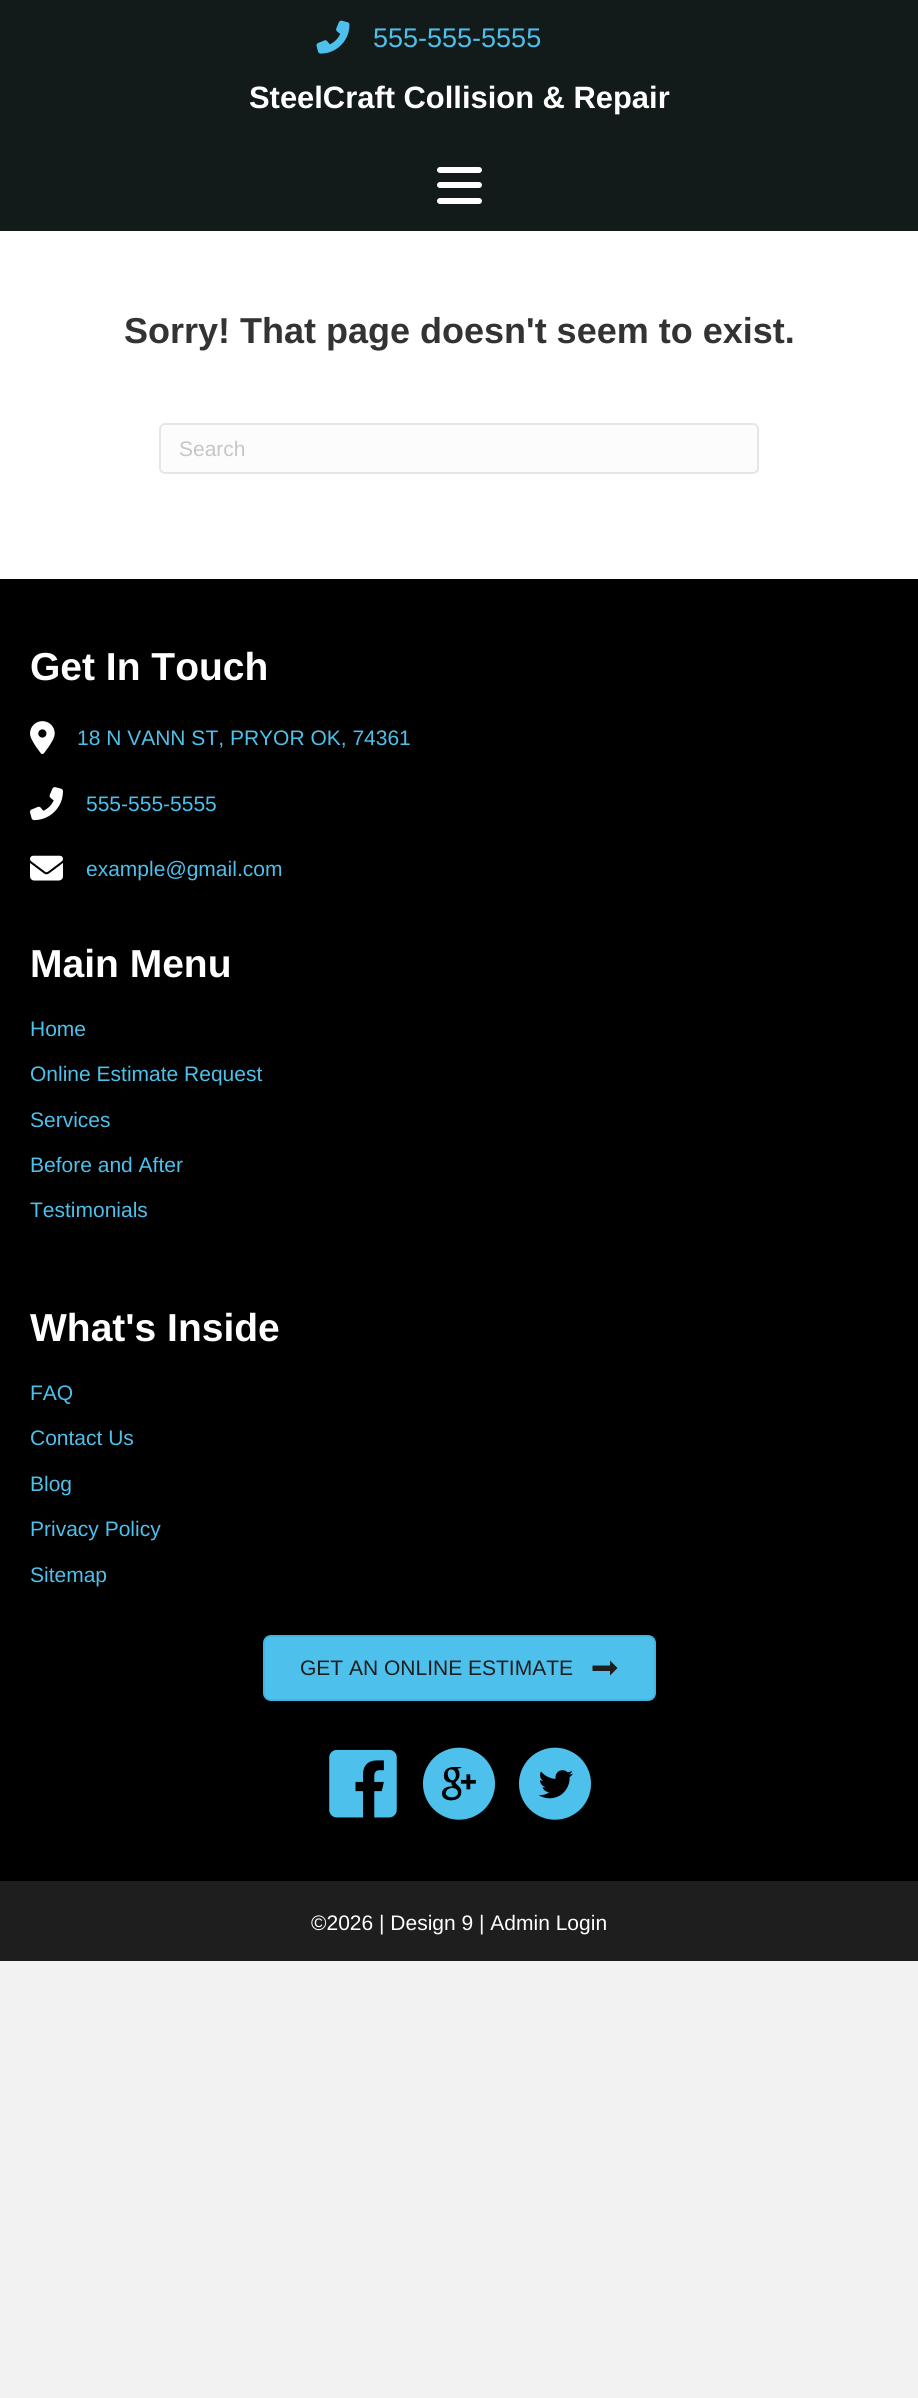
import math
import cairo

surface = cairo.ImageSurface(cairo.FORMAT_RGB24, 918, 2398)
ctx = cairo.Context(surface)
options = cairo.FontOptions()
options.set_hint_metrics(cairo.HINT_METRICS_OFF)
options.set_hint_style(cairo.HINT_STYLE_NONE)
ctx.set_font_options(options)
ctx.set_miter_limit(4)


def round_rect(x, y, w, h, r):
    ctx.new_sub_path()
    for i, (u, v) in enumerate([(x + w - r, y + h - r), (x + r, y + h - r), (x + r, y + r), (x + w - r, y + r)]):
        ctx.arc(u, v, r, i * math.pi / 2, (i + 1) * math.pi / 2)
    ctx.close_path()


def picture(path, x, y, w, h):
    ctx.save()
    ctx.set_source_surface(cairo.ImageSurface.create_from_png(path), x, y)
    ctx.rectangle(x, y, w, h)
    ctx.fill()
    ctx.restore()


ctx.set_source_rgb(0.949, 0.949, 0.949)
ctx.paint()
ctx.set_source_rgb(0.075, 0.102, 0.102)
ctx.rectangle(0, 0, 918, 231)
ctx.fill()
picture("img1.png", 316, 20, 34, 34)
ctx.select_font_face("Liberation Sans")
ctx.set_font_size(27)
ctx.set_source_rgb(0.302, 0.753, 0.925)
ctx.move_to(373, 47)
ctx.show_text("555-555-5555")
ctx.select_font_face("Liberation Sans", cairo.FONT_SLANT_NORMAL, cairo.FONT_WEIGHT_BOLD)
ctx.set_font_size(30.9)
ctx.set_source_rgb(1, 1, 1)
ctx.move_to(249, 108)
ctx.show_text("SteelCraft Collision & Repair")
round_rect(437, 182, 45, 6, 3)
ctx.fill()
round_rect(437, 167, 45, 6, 3)
ctx.fill()
round_rect(437, 198, 45, 6, 3)
ctx.fill()
ctx.rectangle(0, 231, 918, 348)
ctx.fill()
ctx.set_font_size(36)
ctx.set_source_rgb(0.2, 0.2, 0.2)
ctx.move_to(124, 343)
ctx.show_text("Sorry! That page doesn't seem to exist.")
ctx.set_source_rgb(0.988, 0.988, 0.988)
round_rect(160, 424, 598, 49, 5)
ctx.fill_preserve()
ctx.set_source_rgb(0.902, 0.902, 0.902)
ctx.stroke()
ctx.select_font_face("Liberation Sans")
ctx.set_font_size(21)
ctx.set_source_rgb(0.776, 0.776, 0.776)
ctx.move_to(179, 456)
ctx.show_text("Search")
ctx.set_source_rgb(0, 0, 0)
ctx.rectangle(0, 579, 918, 1302)
ctx.fill()
ctx.select_font_face("Liberation Sans", cairo.FONT_SLANT_NORMAL, cairo.FONT_WEIGHT_BOLD)
ctx.set_font_size(39)
ctx.set_source_rgb(1, 1, 1)
ctx.move_to(30, 680)
ctx.show_text("Get In Touch")
picture("img2.png", 30, 721, 25, 33)
ctx.select_font_face("Liberation Sans")
ctx.set_font_size(21)
ctx.set_source_rgb(0.302, 0.753, 0.925)
ctx.move_to(77, 745)
ctx.show_text("18 N VANN ST, PRYOR OK, 74361")
picture("img3.png", 30, 787, 33, 34)
ctx.move_to(86, 811)
ctx.show_text("555-555-5555")
picture("img4.png", 30, 855, 33, 26)
ctx.move_to(86, 876)
ctx.show_text("example@gmail.com")
ctx.select_font_face("Liberation Sans", cairo.FONT_SLANT_NORMAL, cairo.FONT_WEIGHT_BOLD)
ctx.set_font_size(39)
ctx.set_source_rgb(1, 1, 1)
ctx.move_to(30, 977)
ctx.show_text("Main Menu")
ctx.select_font_face("Liberation Sans")
ctx.set_font_size(21)
ctx.set_source_rgb(0.302, 0.753, 0.925)
ctx.move_to(30, 1036)
ctx.show_text("Home")
ctx.move_to(30, 1081)
ctx.show_text("Online Estimate Request")
ctx.move_to(30, 1127)
ctx.show_text("Services")
ctx.move_to(30, 1172)
ctx.show_text("Before and After")
ctx.move_to(30, 1217)
ctx.show_text("Testimonials")
ctx.select_font_face("Liberation Sans", cairo.FONT_SLANT_NORMAL, cairo.FONT_WEIGHT_BOLD)
ctx.set_font_size(39)
ctx.set_source_rgb(1, 1, 1)
ctx.move_to(30, 1341)
ctx.show_text("What's Inside")
ctx.select_font_face("Liberation Sans")
ctx.set_font_size(21)
ctx.set_source_rgb(0.302, 0.753, 0.925)
ctx.move_to(30, 1400)
ctx.show_text("FAQ")
ctx.move_to(30, 1445)
ctx.show_text("Contact Us")
ctx.move_to(30, 1491)
ctx.show_text("Blog")
ctx.move_to(30, 1536)
ctx.show_text("Privacy Policy")
ctx.move_to(30, 1582)
ctx.show_text("Sitemap")
round_rect(264, 1636, 391, 64, 7)
ctx.fill_preserve()
ctx.set_source_rgb(0.255, 0.706, 0.878)
ctx.stroke()
ctx.set_source_rgb(0.118, 0.118, 0.118)
ctx.move_to(300, 1675)
ctx.show_text("GET AN ONLINE ESTIMATE")
ctx.new_path()
ctx.move_to(610, 1675.5)
ctx.line_to(610, 1671)
ctx.line_to(592.5, 1671)
ctx.line_to(592.5, 1665.5)
ctx.line_to(610, 1665.5)
ctx.line_to(610, 1660.5)
ctx.line_to(617.5, 1668)
ctx.close_path()
ctx.fill()
picture("img5.png", 329, 1749, 68, 69)
picture("img6.png", 423, 1747, 72, 73)
picture("img7.png", 519, 1747, 72, 73)
ctx.rectangle(0, 1881, 918, 80)
ctx.fill()
ctx.set_source_rgb(1, 1, 1)
ctx.move_to(311, 1930)
ctx.show_text("©2026 | Design 9 | Admin Login")
surface.write_to_png("page.png")
